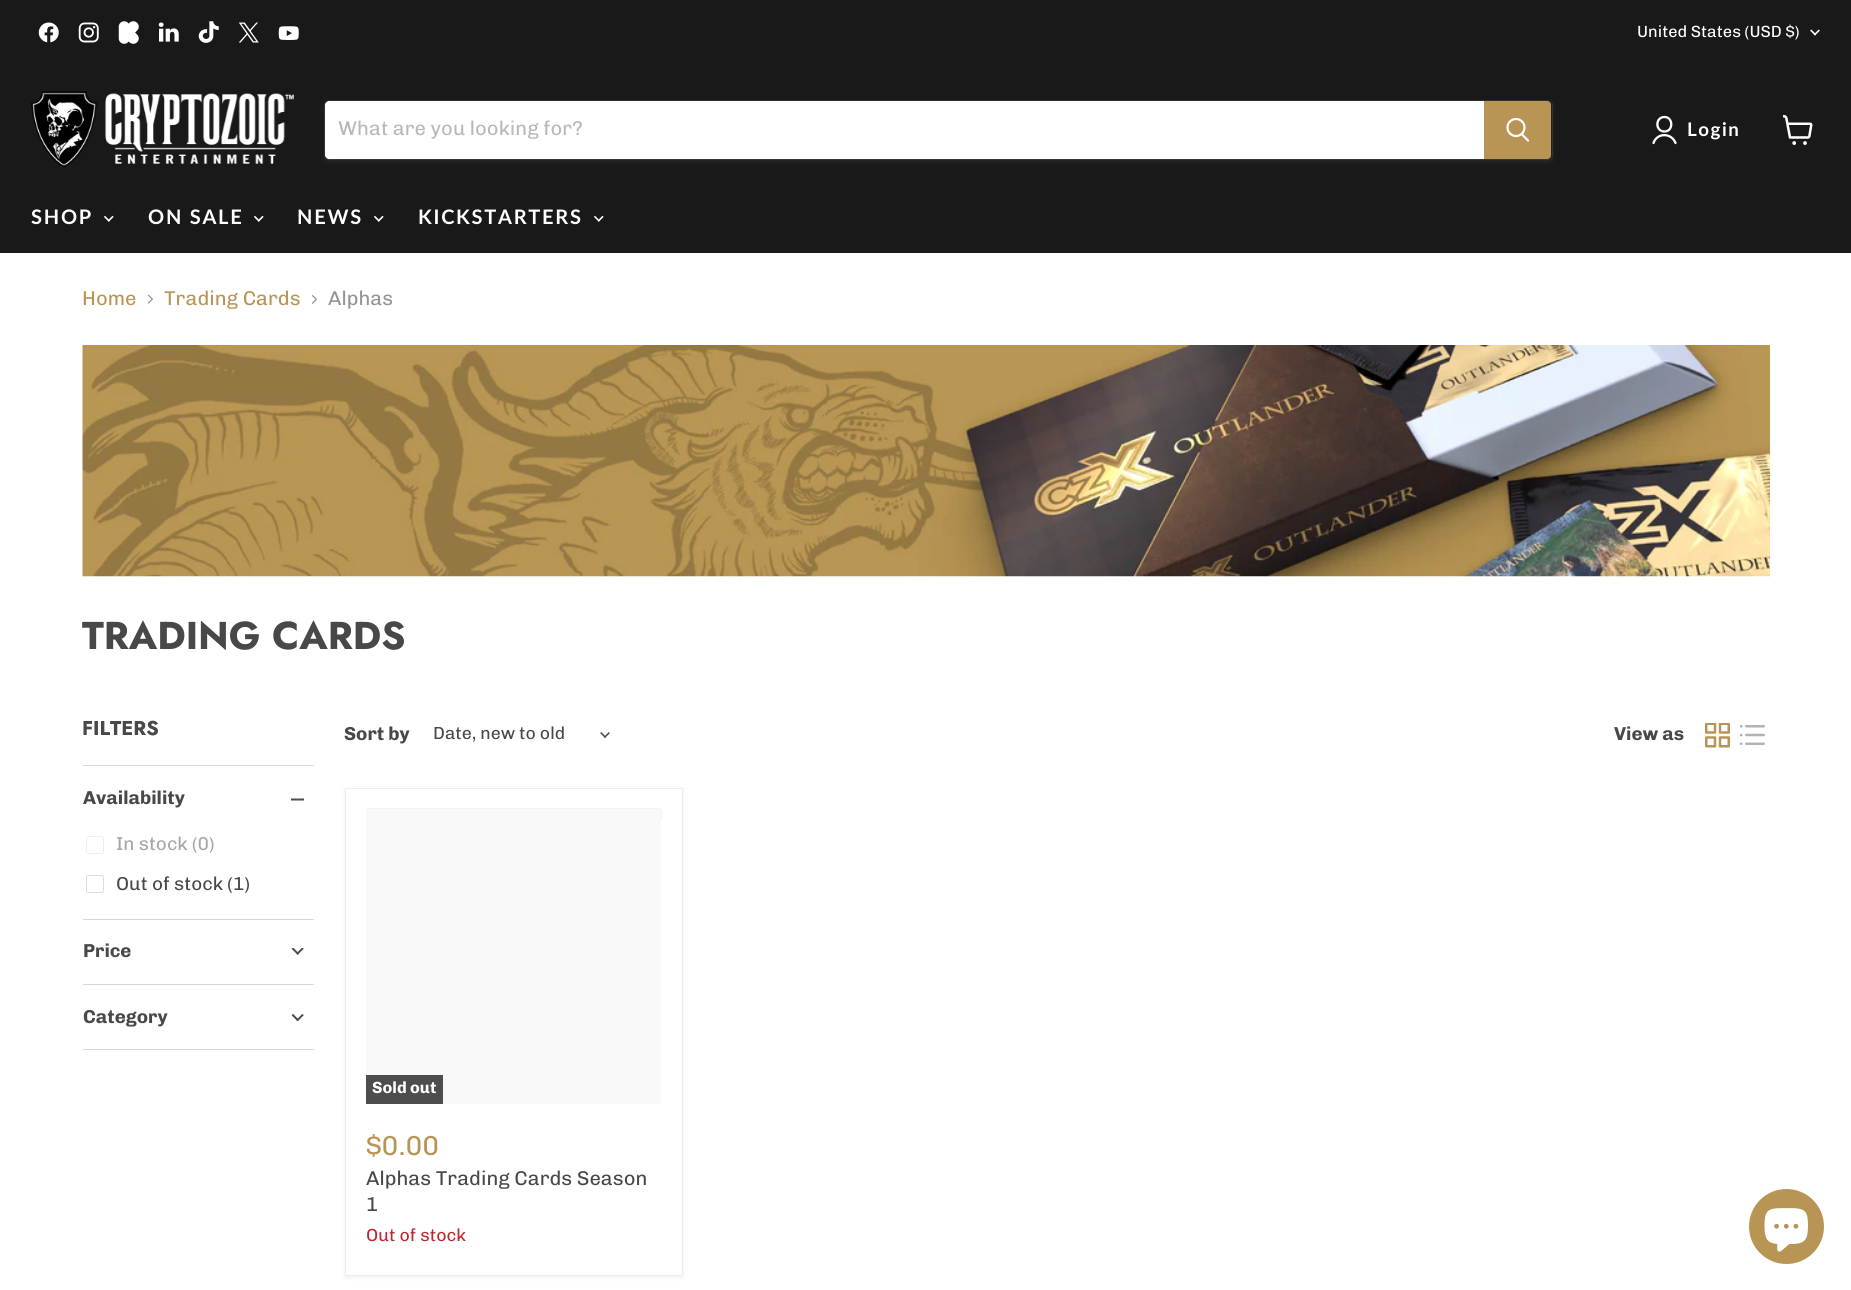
import math
import cairo

surface = cairo.ImageSurface(cairo.FORMAT_RGB24, 1851, 1290)
ctx = cairo.Context(surface)
options = cairo.FontOptions()
options.set_hint_metrics(cairo.HINT_METRICS_OFF)
options.set_hint_style(cairo.HINT_STYLE_NONE)
ctx.set_font_options(options)
ctx.set_miter_limit(4)


def spaced_text(x, y, s, letter, word):
    ctx.move_to(x, y)
    for ch in s:
        ctx.show_text(ch)
        ctx.rel_move_to(letter + word * (ch == ' '), 0)


def round_rect(x, y, w, h, r):
    ctx.new_sub_path()
    for i, (u, v) in enumerate([(x + w - r, y + h - r), (x + r, y + h - r), (x + r, y + r), (x + w - r, y + r)]):
        ctx.arc(u, v, r, i * math.pi / 2, (i + 1) * math.pi / 2)
    ctx.close_path()


def shadow(x, y, w, h, r, blur, alpha):
    ctx.push_group_with_content(cairo.CONTENT_ALPHA)
    ctx.set_operator(cairo.OPERATOR_SOURCE)
    for i in range(15, -16, -2):
        e = blur * i / 6
        if min(w, h) + 2 * e > 0:
            ctx.set_source_rgba(0, 0, 0, alpha * math.erfc((i - 1) / 8.5) / 2)
            round_rect(x - e, y - e, w + 2 * e, h + 2 * e, max(0, min(r + e + blur * .6, min(w, h) / 2 + e)))
            ctx.fill()
    ctx.mask(ctx.pop_group())


def picture(path, x, y, w, h):
    ctx.save()
    ctx.set_source_surface(cairo.ImageSurface.create_from_png(path), x, y)
    ctx.rectangle(x, y, w, h)
    ctx.fill()
    ctx.restore()


ctx.set_source_rgb(1, 1, 1)
ctx.paint()
ctx.set_source_rgb(0.098, 0.098, 0.098)
ctx.rectangle(0, 0, 1851, 253)
ctx.fill()
picture("img1.png", 38, 22, 21, 21)
picture("img2.png", 78, 22, 21, 21)
picture("img3.png", 118, 21, 21, 23)
picture("img4.png", 158, 22, 21, 20)
picture("img5.png", 198, 21, 21, 22)
picture("img6.png", 238, 22, 21, 21)
picture("img7.png", 278, 26, 21, 14)
ctx.select_font_face("Chivo")
ctx.set_font_size(16.25)
ctx.set_source_rgb(1, 1, 1)
ctx.move_to(1637, 37)
ctx.show_text("United States (USD $)")
picture("img8.png", 1810, 29, 10, 7)
picture("img9.png", 31, 91, 263, 77)
ctx.set_source_rgb(0.502, 0.502, 0.502)
shadow(324, 103, 1229, 60, 5, 2, 0.11)
round_rect(324.5, 100.5, 1228, 59, 4.5)
ctx.set_source_rgba(0.502, 0.502, 0.502, 0.2)
ctx.set_line_width(1)
ctx.stroke()
ctx.set_source_rgb(1, 1, 1)
ctx.new_path()
ctx.move_to(329, 101)
ctx.line_to(1484, 101)
ctx.line_to(1484, 159)
ctx.line_to(329, 159)
ctx.curve_to(327, 159, 325, 157, 325, 155)
ctx.line_to(325, 105)
ctx.curve_to(325, 103, 327, 101, 329, 101)
ctx.close_path()
ctx.fill()
ctx.set_font_size(20)
ctx.set_source_rgb(0.722, 0.722, 0.722)
ctx.move_to(338, 135)
ctx.show_text("What are you looking for?")
ctx.set_source_rgb(0.722, 0.584, 0.329)
ctx.new_path()
ctx.move_to(1484.5, 101.5)
ctx.line_to(1547, 101.5)
ctx.curve_to(1549, 101.5, 1550.5, 103, 1550.5, 105)
ctx.line_to(1550.5, 155)
ctx.curve_to(1550.5, 157, 1549, 158.5, 1547, 158.5)
ctx.line_to(1484.5, 158.5)
ctx.close_path()
ctx.fill_preserve()
ctx.stroke()
ctx.new_path()
ctx.move_to(1528, 140.5)
ctx.line_to(1522, 134.5)
ctx.set_source_rgb(1, 1, 1)
ctx.set_line_width(2.2)
ctx.set_line_cap(cairo.LINE_CAP_ROUND)
ctx.stroke()
ctx.arc(1516, 127.5, 8.5, 0, 2 * math.pi)
ctx.set_line_cap(cairo.LINE_CAP_BUTT)
ctx.stroke()
ctx.new_path()
ctx.move_to(1664.5, 131.5)
ctx.curve_to(1673.5, 131.5, 1673.5, 117, 1664.5, 117)
ctx.curve_to(1655, 117, 1655, 131.5, 1664.5, 131.5)
ctx.close_path()
ctx.move_to(1675.5, 143)
ctx.curve_to(1671.5, 132.5, 1657, 132.5, 1653.5, 143)
ctx.set_line_width(2.3)
ctx.set_line_cap(cairo.LINE_CAP_ROUND)
ctx.set_line_join(cairo.LINE_JOIN_ROUND)
ctx.stroke()
ctx.select_font_face("Lato", cairo.FONT_SLANT_NORMAL, cairo.FONT_WEIGHT_BOLD)
ctx.set_font_size(18.75)
spaced_text(1687, 136, "Login", 1.5, 0)
picture("img10.png", 1783, 115, 30, 30)
ctx.set_font_size(20)
spaced_text(31, 224, "SHOP", 1.75, 0)
picture("img11.png", 104, 215, 10, 7)
spaced_text(148, 224, "ON SALE", 1.75, 0)
picture("img11.png", 254, 215, 10, 7)
spaced_text(297, 224, "NEWS", 1.75, 0)
picture("img11.png", 374, 215, 10, 7)
spaced_text(418, 224, "KICKSTARTERS", 1.75, 0)
picture("img11.png", 594, 215, 10, 7)
ctx.select_font_face("Chivo")
ctx.set_source_rgb(0.722, 0.584, 0.329)
ctx.move_to(82, 305)
ctx.show_text("Home")
picture("img12.png", 147, 294, 6, 10)
ctx.move_to(164, 305)
ctx.show_text("Trading Cards")
picture("img13.png", 311, 294, 6, 10)
ctx.set_source_rgb(0.58, 0.58, 0.58)
ctx.move_to(328, 305)
ctx.show_text("Alphas")
picture("img14.png", 82, 345, 1688, 232)
ctx.select_font_face("Jost", cairo.FONT_SLANT_NORMAL, cairo.FONT_WEIGHT_BOLD)
ctx.set_font_size(38.75)
ctx.set_source_rgb(0.282, 0.282, 0.282)
ctx.move_to(82, 649)
ctx.show_text("TRADING CARDS")
ctx.set_font_size(20)
ctx.move_to(82, 735)
ctx.show_text("FILTERS")
ctx.set_source_rgb(0.851, 0.851, 0.851)
ctx.rectangle(83, 765, 231, 1)
ctx.fill()
ctx.select_font_face("Chivo", cairo.FONT_SLANT_NORMAL, cairo.FONT_WEIGHT_BOLD)
ctx.set_font_size(18.75)
ctx.set_source_rgb(0.282, 0.282, 0.282)
ctx.move_to(83, 804)
ctx.show_text("Availability")
picture("img15.png", 291, 798, 13, 3)
round_rect(86.5, 836.5, 17, 17, 2)
ctx.set_source_rgb(0.933, 0.933, 0.933)
ctx.set_line_width(1)
ctx.set_line_cap(cairo.LINE_CAP_BUTT)
ctx.set_line_join(cairo.LINE_JOIN_MITER)
ctx.stroke()
ctx.select_font_face("Chivo")
ctx.set_source_rgb(0.651, 0.651, 0.651)
ctx.move_to(116, 850)
ctx.show_text("In stock (0)")
round_rect(86.5, 875.5, 17, 17, 2)
ctx.set_source_rgb(0.867, 0.867, 0.867)
ctx.stroke()
ctx.set_source_rgb(0.282, 0.282, 0.282)
ctx.move_to(116, 890)
ctx.show_text("Out of stock (1)")
ctx.set_source_rgb(0.851, 0.851, 0.851)
ctx.rectangle(83, 919, 231, 1)
ctx.fill()
ctx.select_font_face("Chivo", cairo.FONT_SLANT_NORMAL, cairo.FONT_WEIGHT_BOLD)
ctx.set_source_rgb(0.282, 0.282, 0.282)
ctx.move_to(83, 957)
ctx.show_text("Price")
picture("img16.png", 291, 948, 13, 7)
ctx.set_source_rgb(0.851, 0.851, 0.851)
ctx.rectangle(83, 984, 231, 1)
ctx.fill()
ctx.rectangle(83, 1049, 231, 1)
ctx.fill()
ctx.set_source_rgb(0.282, 0.282, 0.282)
ctx.move_to(83, 1023)
ctx.show_text("Category")
picture("img17.png", 291, 1013, 13, 8)
ctx.move_to(344, 740)
ctx.show_text("Sort by")
ctx.select_font_face("Chivo")
ctx.set_font_size(17.5)
ctx.move_to(433, 739)
ctx.show_text("Date, new to old")
picture("img18.png", 600, 732, 10, 6)
ctx.select_font_face("Chivo", cairo.FONT_SLANT_NORMAL, cairo.FONT_WEIGHT_BOLD)
ctx.set_font_size(18.75)
ctx.move_to(1614, 740)
ctx.show_text("View as")
picture("img19.png", 1705, 723, 25, 25)
picture("img20.png", 1740, 725, 25, 20)
ctx.set_source_rgb(0.502, 0.502, 0.502)
shadow(345, 789, 338, 489, 0, 2.5, 0.11)
ctx.set_source_rgb(1, 1, 1)
ctx.rectangle(345.5, 788.5, 337, 487)
ctx.fill_preserve()
ctx.set_source_rgb(0.922, 0.922, 0.922)
ctx.stroke()
picture("img21.png", 366, 808, 296, 296)
ctx.set_source_rgb(0.973, 0.973, 0.973)
ctx.rectangle(366, 809, 295, 295)
ctx.fill()
ctx.set_source_rgb(0.302, 0.302, 0.302)
ctx.rectangle(366, 1075, 77, 29)
ctx.fill()
ctx.set_font_size(16.25)
ctx.set_source_rgb(1, 1, 1)
ctx.move_to(372, 1093)
ctx.show_text("Sold out")
ctx.select_font_face("Chivo")
ctx.set_font_size(27.5)
ctx.set_source_rgb(0.722, 0.584, 0.329)
ctx.move_to(366, 1155)
ctx.show_text("$0.00")
ctx.set_font_size(20)
ctx.set_source_rgb(0.282, 0.282, 0.282)
ctx.move_to(366, 1185)
ctx.show_text("Alphas Trading Cards Season")
ctx.move_to(366, 1211)
ctx.show_text("1")
ctx.set_font_size(17.5)
ctx.set_source_rgb(0.749, 0.149, 0.184)
ctx.move_to(366, 1241)
ctx.show_text("Out of stock")
ctx.set_source_rgb(0.722, 0.584, 0.329)
ctx.new_path()
ctx.arc(1786.5, 1226.5, 37.5, 0, 2 * math.pi)
ctx.fill()
picture("img22.png", 1764, 1208, 44, 44)
surface.write_to_png("page.png")
